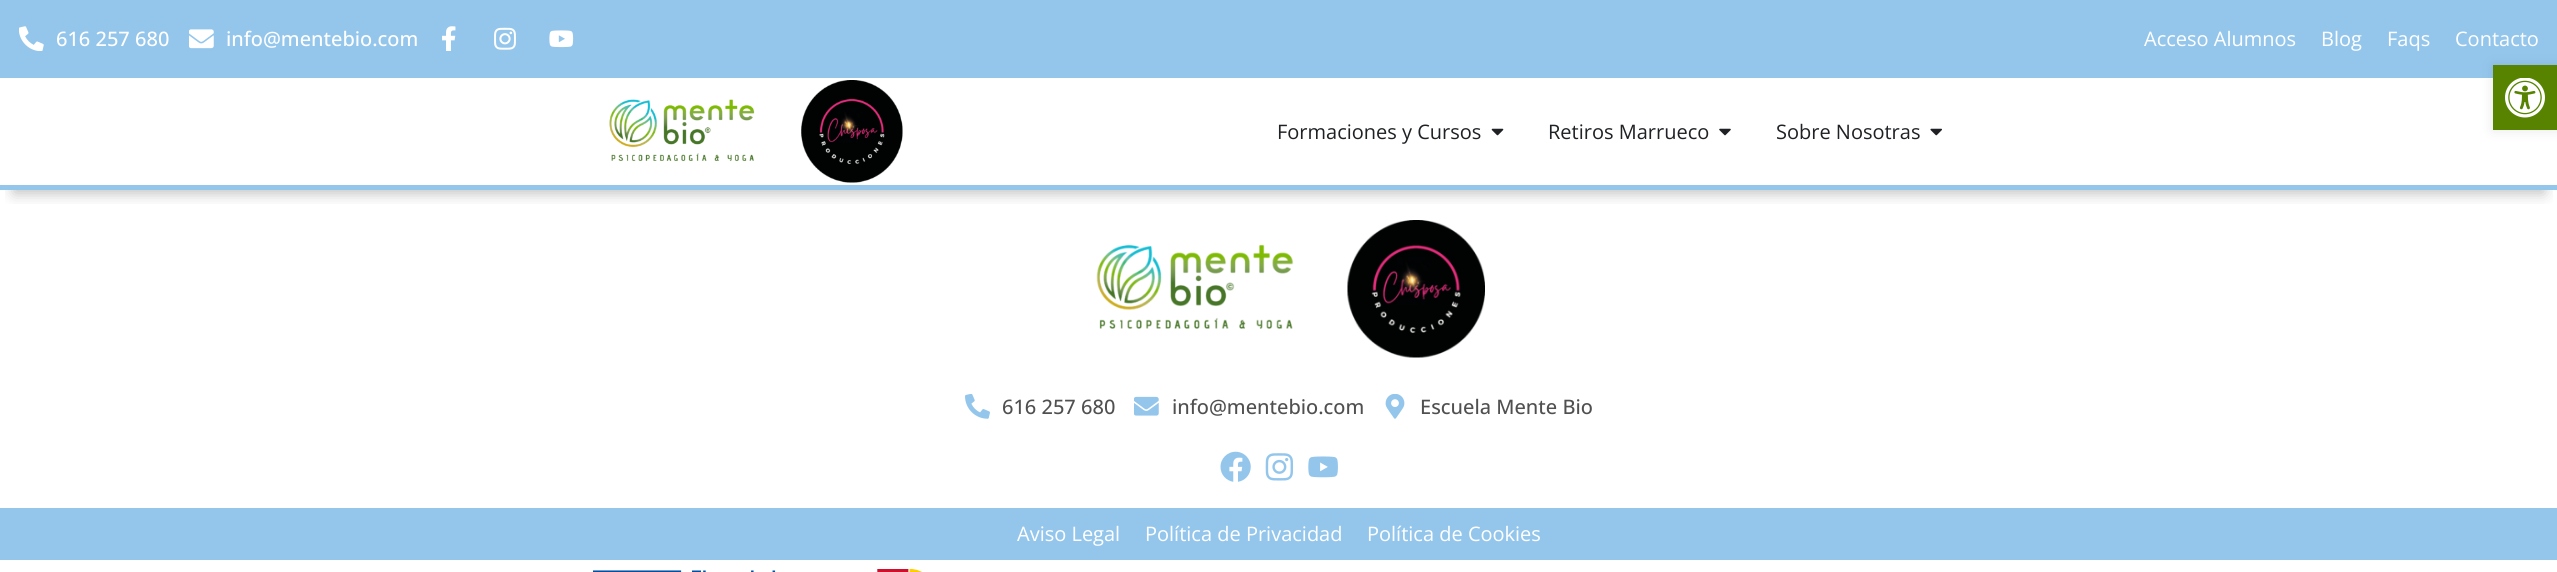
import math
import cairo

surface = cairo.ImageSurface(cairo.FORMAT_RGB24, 2557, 572)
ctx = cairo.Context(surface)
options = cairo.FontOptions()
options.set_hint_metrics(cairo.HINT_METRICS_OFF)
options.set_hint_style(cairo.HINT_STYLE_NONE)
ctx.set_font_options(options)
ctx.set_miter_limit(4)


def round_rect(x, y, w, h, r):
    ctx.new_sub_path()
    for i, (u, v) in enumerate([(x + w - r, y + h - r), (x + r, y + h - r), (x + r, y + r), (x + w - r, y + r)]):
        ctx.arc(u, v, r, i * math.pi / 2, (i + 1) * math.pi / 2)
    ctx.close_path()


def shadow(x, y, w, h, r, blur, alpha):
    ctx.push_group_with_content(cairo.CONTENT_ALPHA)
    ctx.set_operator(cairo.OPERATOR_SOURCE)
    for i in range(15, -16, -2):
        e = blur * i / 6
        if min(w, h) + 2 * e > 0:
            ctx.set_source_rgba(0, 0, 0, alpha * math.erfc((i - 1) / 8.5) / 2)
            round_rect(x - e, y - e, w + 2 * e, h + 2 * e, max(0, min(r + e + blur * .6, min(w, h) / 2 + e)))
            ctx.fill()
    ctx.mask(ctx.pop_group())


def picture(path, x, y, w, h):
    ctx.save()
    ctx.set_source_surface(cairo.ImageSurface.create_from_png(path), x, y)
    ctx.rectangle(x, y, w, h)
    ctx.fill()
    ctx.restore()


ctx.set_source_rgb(1, 1, 1)
ctx.paint()
ctx.set_source_rgb(0.58, 0.776, 0.925)
ctx.rectangle(0, 0, 2557, 78)
ctx.fill()
picture("img1.png", 19, 26, 25, 25)
ctx.select_font_face("Open Sans Medium")
ctx.set_font_size(20)
ctx.set_source_rgb(1, 1, 1)
ctx.move_to(56, 46)
ctx.show_text("616 257 680")
picture("img2.png", 189, 29, 25, 20)
ctx.move_to(226, 46)
ctx.show_text("info@mentebio.com")
picture("img3.png", 442, 26, 14, 25)
picture("img4.png", 494, 27, 22, 23)
picture("img5.png", 549, 30, 25, 18)
ctx.select_font_face("Open Sans")
ctx.move_to(2144, 46)
ctx.show_text("Acceso Alumnos")
ctx.move_to(2321, 46)
ctx.show_text("Blog")
ctx.move_to(2387, 46)
ctx.show_text("Faqs")
ctx.move_to(2455, 46)
ctx.show_text("Contacto")
ctx.save()
ctx.rectangle(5, 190, 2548, 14)
ctx.clip()
ctx.set_source_rgb(0, 0, 0)
shadow(14, 113, 2530, 80, 0, 7.5, 0.26)
ctx.restore()
picture("img6.png", 609, 99, 146, 63)
picture("img7.png", 801, 80, 102, 103)
ctx.set_source_rgb(0.122, 0.129, 0.141)
ctx.move_to(1277, 139)
ctx.show_text("Formaciones y Cursos")
picture("img8.png", 1491, 128, 13, 8)
ctx.move_to(1548, 139)
ctx.show_text("Retiros Marrueco")
picture("img9.png", 1719, 128, 12, 8)
ctx.move_to(1776, 139)
ctx.show_text("Sobre Nosotras")
picture("img10.png", 1930, 128, 12, 8)
ctx.set_source_rgb(0, 0, 0)
shadow(2493, 65, 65, 65, 0, 6, 0.1)
ctx.set_source_rgb(0.345, 0.514, 0)
ctx.rectangle(2493, 65, 64, 65)
ctx.fill()
picture("img11.png", 2505, 78, 40, 40)
ctx.set_source_rgb(0.58, 0.776, 0.925)
ctx.rectangle(0, 185, 2557, 5)
ctx.fill()
picture("img12.png", 1096, 244, 198, 85)
picture("img13.png", 1347, 220, 138, 138)
picture("img14.png", 965, 394, 25, 25)
ctx.select_font_face("Open Sans Medium")
ctx.set_source_rgb(0.314, 0.314, 0.314)
ctx.move_to(1002, 414)
ctx.show_text("616 257 680")
picture("img15.png", 1134, 396, 25, 20)
ctx.move_to(1172, 414)
ctx.show_text("info@mentebio.com")
picture("img16.png", 1385, 394, 20, 25)
ctx.move_to(1420, 414)
ctx.show_text("Escuela Mente Bio")
picture("img17.png", 1220, 451, 31, 31)
picture("img18.png", 1265, 453, 29, 28)
picture("img19.png", 1308, 456, 30, 22)
ctx.set_source_rgb(0.58, 0.776, 0.925)
ctx.rectangle(0, 508, 2557, 52)
ctx.fill()
ctx.select_font_face("Open Sans")
ctx.set_source_rgb(1, 1, 1)
ctx.move_to(1017, 541)
ctx.show_text("Aviso Legal")
ctx.move_to(1145, 541)
ctx.show_text("Política de Privacidad")
ctx.move_to(1367, 541)
ctx.show_text("Política de Cookies")
picture("img20.png", 593, 570, 183, 2)
picture("img21.png", 877, 569, 45, 3)
surface.write_to_png("page.png")
